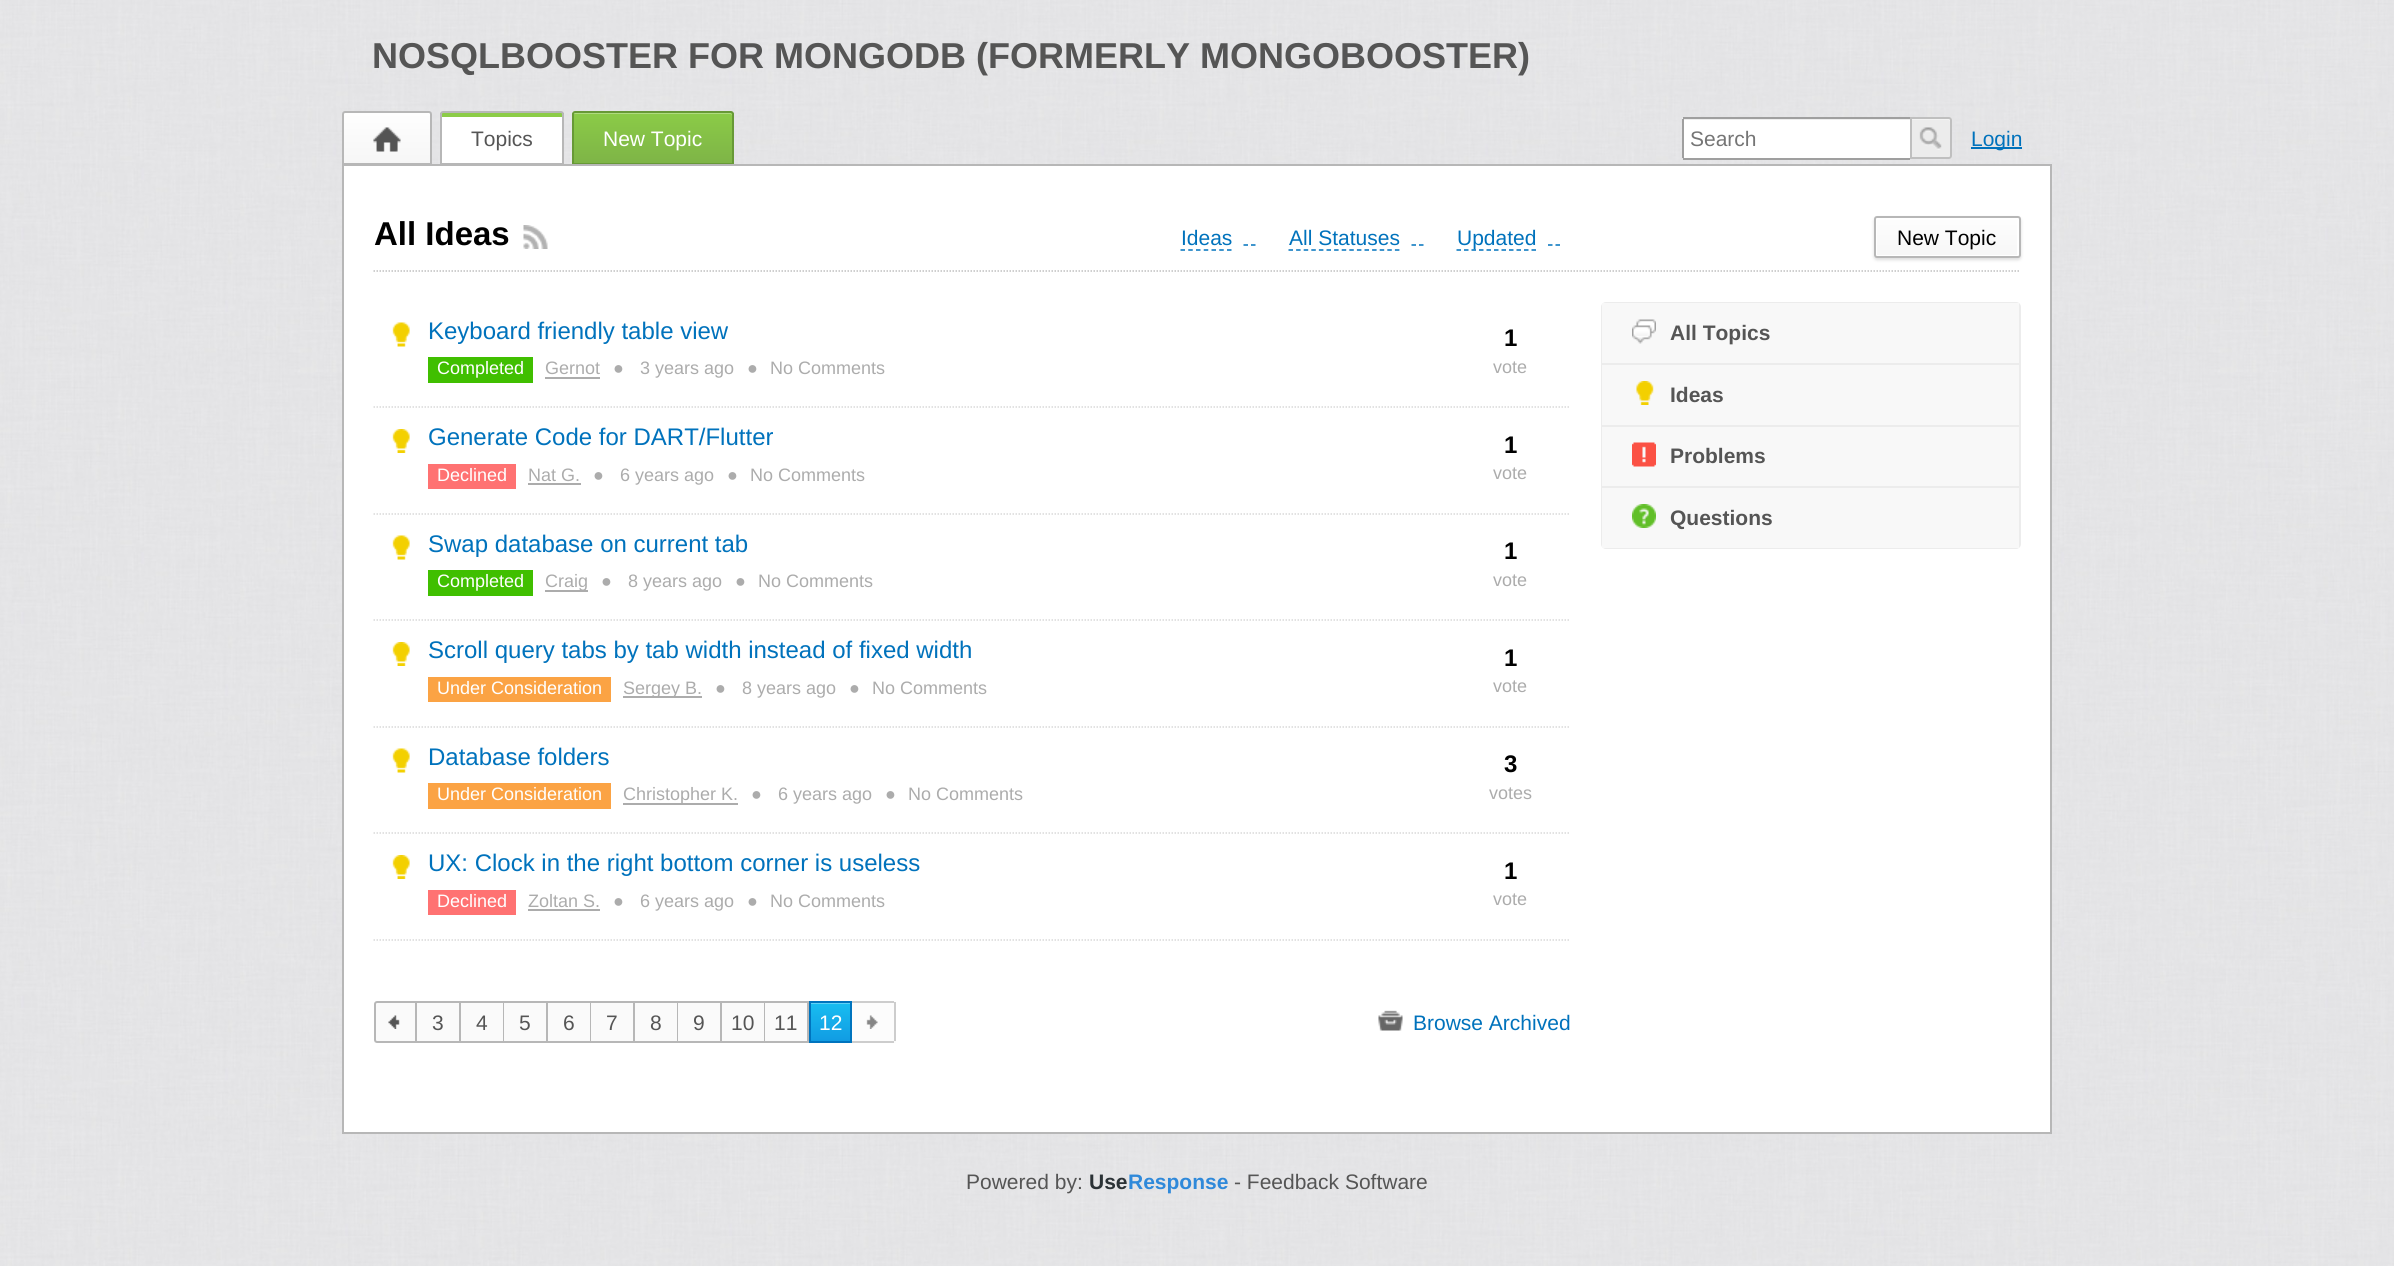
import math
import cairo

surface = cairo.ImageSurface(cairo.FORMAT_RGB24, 2394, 1266)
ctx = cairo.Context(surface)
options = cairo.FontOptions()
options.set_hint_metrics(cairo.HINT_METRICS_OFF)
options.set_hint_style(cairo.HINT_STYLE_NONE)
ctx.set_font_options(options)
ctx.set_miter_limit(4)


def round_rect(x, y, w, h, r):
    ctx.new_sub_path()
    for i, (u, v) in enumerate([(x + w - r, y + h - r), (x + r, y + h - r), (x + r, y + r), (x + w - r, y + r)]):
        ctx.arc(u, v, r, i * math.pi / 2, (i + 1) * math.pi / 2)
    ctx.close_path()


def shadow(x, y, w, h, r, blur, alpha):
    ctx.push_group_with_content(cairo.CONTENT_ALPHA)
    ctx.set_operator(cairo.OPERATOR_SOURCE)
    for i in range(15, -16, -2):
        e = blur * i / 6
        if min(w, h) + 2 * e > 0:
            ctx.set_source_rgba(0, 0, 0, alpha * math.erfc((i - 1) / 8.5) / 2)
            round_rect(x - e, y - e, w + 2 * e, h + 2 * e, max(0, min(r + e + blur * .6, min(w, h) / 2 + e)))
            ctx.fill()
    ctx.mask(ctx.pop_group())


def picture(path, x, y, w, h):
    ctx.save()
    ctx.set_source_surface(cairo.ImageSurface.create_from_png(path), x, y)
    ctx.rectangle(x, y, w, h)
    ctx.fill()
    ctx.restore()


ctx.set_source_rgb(1, 1, 1)
ctx.paint()
picture("img1.png", 0, 0, 2394, 1266)
ctx.select_font_face("Liberation Sans", cairo.FONT_SLANT_NORMAL, cairo.FONT_WEIGHT_BOLD)
ctx.set_font_size(36)
ctx.set_source_rgb(0.333, 0.333, 0.333)
ctx.move_to(372, 68)
ctx.show_text("NOSQLBOOSTER FOR MONGODB (FORMERLY MONGOBOOSTER)")
gradient = cairo.LinearGradient(387, 113, 387, 164)
gradient.add_color_stop_rgba(0, 0.996, 0.996, 0.996, 1)
gradient.add_color_stop_rgba(1, 0.965, 0.965, 0.965, 1)
ctx.set_source(gradient)
ctx.rectangle(342, 113, 90, 50)
ctx.fill()
ctx.new_path()
ctx.move_to(345, 112)
ctx.line_to(429, 112)
ctx.curve_to(430, 112, 431, 113, 431, 114)
ctx.line_to(431, 164)
ctx.line_to(343, 164)
ctx.line_to(343, 114)
ctx.curve_to(343, 113, 344, 112, 345, 112)
ctx.close_path()
ctx.set_source_rgb(0.718, 0.718, 0.718)
ctx.stroke()
picture("img2.png", 373, 127, 28, 25)
ctx.set_source_rgb(0.549, 0.8, 0.278)
ctx.rectangle(440, 113, 124, 4)
ctx.fill()
ctx.set_source_rgb(1, 1, 1)
ctx.rectangle(442, 117, 120, 46)
ctx.fill()
ctx.new_path()
ctx.move_to(443, 112)
ctx.line_to(561, 112)
ctx.curve_to(562, 112, 563, 113, 563, 114)
ctx.line_to(563, 164)
ctx.line_to(441, 164)
ctx.line_to(441, 114)
ctx.curve_to(441, 113, 442, 112, 443, 112)
ctx.close_path()
ctx.set_source_rgb(0.718, 0.718, 0.718)
ctx.stroke()
ctx.select_font_face("Liberation Sans")
ctx.set_font_size(21)
ctx.set_source_rgb(0.333, 0.333, 0.333)
ctx.move_to(471, 146)
ctx.show_text("Topics")
gradient = cairo.LinearGradient(653, 113, 653, 164)
gradient.add_color_stop_rgba(0, 0.545, 0.796, 0.278, 1)
gradient.add_color_stop_rgba(1, 0.494, 0.706, 0.278, 1)
ctx.set_source(gradient)
ctx.rectangle(572, 113, 162, 50)
ctx.fill()
ctx.set_source_rgb(0.686, 0.859, 0.498)
ctx.new_path()
ctx.move_to(574, 114)
ctx.line_to(730, 114)
ctx.curve_to(731, 114, 732, 115, 732, 116)
ctx.curve_to(732, 115, 732, 113, 730, 113)
ctx.line_to(574, 113)
ctx.curve_to(573, 113, 573, 114, 573, 115)
ctx.close_path()
ctx.fill()
ctx.new_path()
ctx.move_to(575, 112)
ctx.line_to(731, 112)
ctx.curve_to(732, 112, 733, 113, 733, 114)
ctx.line_to(733, 164)
ctx.line_to(573, 164)
ctx.line_to(573, 114)
ctx.curve_to(573, 113, 574, 112, 575, 112)
ctx.close_path()
ctx.set_source_rgb(0.404, 0.6, 0.212)
ctx.stroke()
ctx.set_source_rgb(1, 1, 1)
ctx.move_to(603, 146)
ctx.show_text("New Topic")
ctx.new_path()
ctx.move_to(1685, 117)
ctx.line_to(1910, 117)
ctx.line_to(1910, 159)
ctx.line_to(1685, 159)
ctx.curve_to(1683.5, 159, 1682, 157.5, 1682, 156)
ctx.line_to(1682, 120)
ctx.curve_to(1682, 118.5, 1683.5, 117, 1685, 117)
ctx.close_path()
ctx.fill()
ctx.set_source_rgb(0.933, 0.933, 0.933)
ctx.new_path()
ctx.move_to(1684, 120)
ctx.line_to(1910, 120)
ctx.line_to(1910, 119)
ctx.line_to(1684, 119)
ctx.curve_to(1683, 119, 1683, 120, 1683, 121)
ctx.close_path()
ctx.fill()
ctx.set_source_rgb(0.624, 0.624, 0.624)
ctx.rectangle(1683, 117, 227, 2)
ctx.fill()
ctx.rectangle(1683, 158, 227, 2)
ctx.fill()
ctx.rectangle(1682, 119, 2, 39)
ctx.fill()
ctx.set_source_rgb(0.459, 0.459, 0.459)
ctx.move_to(1690, 146)
ctx.show_text("Search")
ctx.set_source_rgb(0.922, 0.922, 0.922)
ctx.new_path()
ctx.move_to(1910, 117)
ctx.line_to(1949, 117)
ctx.curve_to(1950.5, 117, 1952, 118.5, 1952, 120)
ctx.line_to(1952, 156)
ctx.curve_to(1952, 157.5, 1950.5, 159, 1949, 159)
ctx.line_to(1910, 159)
ctx.close_path()
ctx.fill()
ctx.set_source_rgb(0.953, 0.953, 0.953)
ctx.new_path()
ctx.move_to(1911, 120)
ctx.line_to(1948, 120)
ctx.curve_to(1949, 120, 1950, 121, 1950, 122)
ctx.line_to(1950, 120.5)
ctx.curve_to(1950, 119.5, 1949.5, 119, 1948.5, 119)
ctx.line_to(1911, 119)
ctx.close_path()
ctx.fill()
ctx.new_path()
ctx.move_to(1911, 118)
ctx.line_to(1949, 118)
ctx.curve_to(1950, 118, 1951, 119, 1951, 120)
ctx.line_to(1951, 156)
ctx.curve_to(1951, 157, 1950, 158, 1949, 158)
ctx.line_to(1911, 158)
ctx.close_path()
ctx.set_source_rgb(0.749, 0.749, 0.749)
ctx.stroke()
picture("img3.png", 1919, 127, 23, 23)
ctx.set_source_rgb(0, 0.447, 0.737)
ctx.rectangle(1971, 147, 51, 2)
ctx.fill()
ctx.move_to(1971, 146)
ctx.show_text("Login")
ctx.set_source_rgb(1, 1, 1)
ctx.rectangle(343, 165, 1708, 968)
ctx.fill_preserve()
ctx.set_source_rgb(0.718, 0.718, 0.718)
ctx.stroke()
ctx.new_path()
ctx.move_to(373.5, 271)
ctx.line_to(2020.5, 271)
ctx.set_source_rgb(0.749, 0.749, 0.749)
ctx.set_line_width(1.5)
ctx.set_dash([1.5, 1.5])
ctx.stroke()
ctx.select_font_face("Liberation Sans", cairo.FONT_SLANT_NORMAL, cairo.FONT_WEIGHT_BOLD)
ctx.set_font_size(33)
ctx.set_source_rgb(0, 0, 0)
ctx.move_to(374, 245)
ctx.show_text("All Ideas")
picture("img4.png", 523, 225, 25, 24)
ctx.select_font_face("Liberation Sans")
ctx.set_font_size(21)
ctx.set_source_rgb(0, 0.447, 0.737)
ctx.move_to(1181, 245)
ctx.show_text("Ideas")
ctx.new_path()
ctx.move_to(1180.5, 250)
ctx.line_to(1231.5, 250)
ctx.set_dash([4.5, 3.25])
ctx.stroke()
ctx.new_path()
ctx.move_to(1243.5, 245)
ctx.line_to(1248, 245)
ctx.move_to(1251, 245)
ctx.line_to(1255.5, 245)
ctx.set_dash([])
ctx.stroke()
ctx.move_to(1289, 245)
ctx.show_text("All Statuses")
ctx.new_path()
ctx.move_to(1288.5, 250)
ctx.line_to(1399.5, 250)
ctx.set_dash([4.5, 3.1])
ctx.stroke()
ctx.new_path()
ctx.move_to(1411.5, 245)
ctx.line_to(1416, 245)
ctx.move_to(1419, 245)
ctx.line_to(1423.5, 245)
ctx.set_dash([])
ctx.stroke()
ctx.new_path()
ctx.move_to(1456.5, 250)
ctx.line_to(1536, 250)
ctx.set_dash([4.5, 3])
ctx.stroke()
ctx.move_to(1457, 245)
ctx.show_text("Updated")
ctx.new_path()
ctx.move_to(1548, 245)
ctx.line_to(1552.5, 245)
ctx.move_to(1555.5, 245)
ctx.line_to(1560, 245)
ctx.set_dash([])
ctx.stroke()
ctx.set_source_rgb(0.867, 0.867, 0.867)
shadow(1874, 218, 147, 42, 3, 1.5, 1)
ctx.save()
round_rect(1874, 216, 147, 42, 3)
ctx.clip()
gradient = cairo.LinearGradient(1947, 218, 1947, 257)
gradient.add_color_stop_rgba(0, 0.996, 0.996, 0.996, 1)
gradient.add_color_stop_rgba(1, 0.965, 0.965, 0.965, 1)
ctx.set_source(gradient)
ctx.rectangle(1874, 218, 147, 39)
ctx.fill()
ctx.restore()
round_rect(1876, 219, 142, 37, 0.5)
ctx.set_source_rgb(1, 1, 1)
ctx.set_line_width(2)
ctx.stroke()
round_rect(1875, 217, 145, 40, 2)
ctx.set_source_rgb(0.718, 0.718, 0.718)
ctx.stroke()
ctx.set_source_rgb(0, 0, 0)
ctx.move_to(1897, 245)
ctx.show_text("New Topic")
ctx.new_path()
ctx.move_to(373.5, 407)
ctx.line_to(1570.5, 407)
ctx.set_source_rgb(0.851, 0.851, 0.851)
ctx.set_line_width(1.5)
ctx.set_dash([1.5, 1.5])
ctx.stroke()
picture("img5.png", 392, 322, 18, 25)
ctx.set_font_size(24)
ctx.set_source_rgb(0, 0.447, 0.737)
ctx.move_to(428, 339)
ctx.show_text("Keyboard friendly table view")
ctx.set_source_rgb(0.251, 0.749, 0)
ctx.rectangle(428, 357, 105, 26)
ctx.fill()
ctx.set_font_size(18)
ctx.set_source_rgb(1, 1, 1)
ctx.move_to(437, 374)
ctx.show_text("Completed")
ctx.set_source_rgb(0.675, 0.675, 0.675)
ctx.move_to(545, 374)
ctx.show_text("Gernot")
ctx.rectangle(545, 377, 55, 2)
ctx.fill()
ctx.move_to(613, 374)
ctx.show_text("●")
ctx.move_to(640, 374)
ctx.show_text("3 years ago")
ctx.move_to(747, 374)
ctx.show_text("●")
ctx.move_to(770, 374)
ctx.show_text("No Comments")
ctx.select_font_face("Liberation Sans", cairo.FONT_SLANT_NORMAL, cairo.FONT_WEIGHT_BOLD)
ctx.set_font_size(24)
ctx.set_source_rgb(0, 0, 0)
ctx.move_to(1504, 346)
ctx.show_text("1")
ctx.select_font_face("Liberation Sans")
ctx.set_font_size(18)
ctx.set_source_rgb(0.675, 0.675, 0.675)
ctx.move_to(1493, 373)
ctx.show_text("vote")
ctx.new_path()
ctx.move_to(373.5, 514)
ctx.line_to(1570.5, 514)
ctx.set_source_rgb(0.851, 0.851, 0.851)
ctx.stroke()
picture("img6.png", 392, 429, 18, 24)
ctx.set_font_size(24)
ctx.set_source_rgb(0, 0.447, 0.737)
ctx.move_to(428, 445)
ctx.show_text("Generate Code for DART/Flutter")
ctx.set_source_rgb(1, 0.447, 0.447)
ctx.rectangle(428, 464, 88, 25)
ctx.fill()
ctx.set_font_size(18)
ctx.set_source_rgb(1, 1, 1)
ctx.move_to(437, 481)
ctx.show_text("Declined")
ctx.set_source_rgb(0.675, 0.675, 0.675)
ctx.move_to(528, 481)
ctx.show_text("Nat G.")
ctx.rectangle(528, 483, 53, 2)
ctx.fill()
ctx.move_to(593, 481)
ctx.show_text("●")
ctx.move_to(620, 481)
ctx.show_text("6 years ago")
ctx.move_to(727, 481)
ctx.show_text("●")
ctx.move_to(750, 481)
ctx.show_text("No Comments")
ctx.select_font_face("Liberation Sans", cairo.FONT_SLANT_NORMAL, cairo.FONT_WEIGHT_BOLD)
ctx.set_font_size(24)
ctx.set_source_rgb(0, 0, 0)
ctx.move_to(1504, 453)
ctx.show_text("1")
ctx.select_font_face("Liberation Sans")
ctx.set_font_size(18)
ctx.set_source_rgb(0.675, 0.675, 0.675)
ctx.move_to(1493, 479)
ctx.show_text("vote")
ctx.new_path()
ctx.move_to(373.5, 620)
ctx.line_to(1570.5, 620)
ctx.set_source_rgb(0.851, 0.851, 0.851)
ctx.stroke()
picture("img5.png", 392, 535, 18, 25)
ctx.set_font_size(24)
ctx.set_source_rgb(0, 0.447, 0.737)
ctx.move_to(428, 552)
ctx.show_text("Swap database on current tab")
ctx.set_source_rgb(0.251, 0.749, 0)
ctx.rectangle(428, 570, 105, 26)
ctx.fill()
ctx.set_font_size(18)
ctx.set_source_rgb(1, 1, 1)
ctx.move_to(437, 587)
ctx.show_text("Completed")
ctx.set_source_rgb(0.675, 0.675, 0.675)
ctx.rectangle(545, 590, 43, 2)
ctx.fill()
ctx.move_to(545, 587)
ctx.show_text("Craig")
ctx.move_to(601, 587)
ctx.show_text("●")
ctx.move_to(628, 587)
ctx.show_text("8 years ago")
ctx.move_to(735, 587)
ctx.show_text("●")
ctx.move_to(758, 587)
ctx.show_text("No Comments")
ctx.select_font_face("Liberation Sans", cairo.FONT_SLANT_NORMAL, cairo.FONT_WEIGHT_BOLD)
ctx.set_font_size(24)
ctx.set_source_rgb(0, 0, 0)
ctx.move_to(1504, 559)
ctx.show_text("1")
ctx.select_font_face("Liberation Sans")
ctx.set_font_size(18)
ctx.set_source_rgb(0.675, 0.675, 0.675)
ctx.move_to(1493, 586)
ctx.show_text("vote")
ctx.new_path()
ctx.move_to(373.5, 727)
ctx.line_to(1570.5, 727)
ctx.set_source_rgb(0.851, 0.851, 0.851)
ctx.stroke()
picture("img6.png", 392, 642, 18, 24)
ctx.set_font_size(24)
ctx.set_source_rgb(0, 0.447, 0.737)
ctx.move_to(428, 658)
ctx.show_text("Scroll query tabs by tab width instead of fixed width")
ctx.set_source_rgb(0.984, 0.639, 0.267)
ctx.rectangle(428, 677, 183, 25)
ctx.fill()
ctx.set_font_size(18)
ctx.set_source_rgb(1, 1, 1)
ctx.move_to(437, 694)
ctx.show_text("Under Consideration")
ctx.set_source_rgb(0.675, 0.675, 0.675)
ctx.rectangle(623, 696, 79, 2)
ctx.fill()
ctx.move_to(623, 694)
ctx.show_text("Sergey B.")
ctx.move_to(715, 694)
ctx.show_text("●")
ctx.move_to(742, 694)
ctx.show_text("8 years ago")
ctx.move_to(849, 694)
ctx.show_text("●")
ctx.move_to(872, 694)
ctx.show_text("No Comments")
ctx.select_font_face("Liberation Sans", cairo.FONT_SLANT_NORMAL, cairo.FONT_WEIGHT_BOLD)
ctx.set_font_size(24)
ctx.set_source_rgb(0, 0, 0)
ctx.move_to(1504, 666)
ctx.show_text("1")
ctx.select_font_face("Liberation Sans")
ctx.set_font_size(18)
ctx.set_source_rgb(0.675, 0.675, 0.675)
ctx.move_to(1493, 692)
ctx.show_text("vote")
ctx.new_path()
ctx.move_to(373.5, 833)
ctx.line_to(1570.5, 833)
ctx.set_source_rgb(0.851, 0.851, 0.851)
ctx.stroke()
picture("img5.png", 392, 748, 18, 25)
ctx.set_font_size(24)
ctx.set_source_rgb(0, 0.447, 0.737)
ctx.move_to(428, 765)
ctx.show_text("Database folders")
ctx.set_source_rgb(0.984, 0.639, 0.267)
ctx.rectangle(428, 783, 183, 26)
ctx.fill()
ctx.set_font_size(18)
ctx.set_source_rgb(1, 1, 1)
ctx.move_to(437, 800)
ctx.show_text("Under Consideration")
ctx.set_source_rgb(0.675, 0.675, 0.675)
ctx.rectangle(623, 803, 115, 2)
ctx.fill()
ctx.move_to(623, 800)
ctx.show_text("Christopher K.")
ctx.move_to(751, 800)
ctx.show_text("●")
ctx.move_to(778, 800)
ctx.show_text("6 years ago")
ctx.move_to(885, 800)
ctx.show_text("●")
ctx.move_to(908, 800)
ctx.show_text("No Comments")
ctx.select_font_face("Liberation Sans", cairo.FONT_SLANT_NORMAL, cairo.FONT_WEIGHT_BOLD)
ctx.set_font_size(24)
ctx.set_source_rgb(0, 0, 0)
ctx.move_to(1504, 772)
ctx.show_text("3")
ctx.select_font_face("Liberation Sans")
ctx.set_font_size(18)
ctx.set_source_rgb(0.675, 0.675, 0.675)
ctx.move_to(1489, 799)
ctx.show_text("votes")
ctx.new_path()
ctx.move_to(373.5, 940)
ctx.line_to(1570.5, 940)
ctx.set_source_rgb(0.851, 0.851, 0.851)
ctx.stroke()
picture("img6.png", 392, 855, 18, 24)
ctx.set_font_size(24)
ctx.set_source_rgb(0, 0.447, 0.737)
ctx.move_to(428, 871)
ctx.show_text("UX: Clock in the right bottom corner is useless")
ctx.set_source_rgb(1, 0.447, 0.447)
ctx.rectangle(428, 890, 88, 25)
ctx.fill()
ctx.set_font_size(18)
ctx.set_source_rgb(1, 1, 1)
ctx.move_to(437, 907)
ctx.show_text("Declined")
ctx.set_source_rgb(0.675, 0.675, 0.675)
ctx.move_to(528, 907)
ctx.show_text("Zoltan S.")
ctx.rectangle(528, 909, 72, 2)
ctx.fill()
ctx.move_to(613, 907)
ctx.show_text("●")
ctx.move_to(640, 907)
ctx.show_text("6 years ago")
ctx.move_to(747, 907)
ctx.show_text("●")
ctx.move_to(770, 907)
ctx.show_text("No Comments")
ctx.select_font_face("Liberation Sans", cairo.FONT_SLANT_NORMAL, cairo.FONT_WEIGHT_BOLD)
ctx.set_font_size(24)
ctx.set_source_rgb(0, 0, 0)
ctx.move_to(1504, 879)
ctx.show_text("1")
ctx.select_font_face("Liberation Sans")
ctx.set_font_size(18)
ctx.set_source_rgb(0.675, 0.675, 0.675)
ctx.move_to(1493, 905)
ctx.show_text("vote")
ctx.set_source_rgb(0.98, 0.98, 0.98)
ctx.rectangle(374, 1003, 3, 40)
ctx.fill()
ctx.new_path()
ctx.move_to(377, 1001)
ctx.line_to(417, 1001)
ctx.line_to(417, 1043)
ctx.line_to(377, 1043)
ctx.curve_to(375.5, 1043, 374, 1041.5, 374, 1040)
ctx.line_to(374, 1004)
ctx.curve_to(374, 1002.5, 375.5, 1001, 377, 1001)
ctx.close_path()
ctx.fill()
picture("img7.png", 388, 1015, 12, 14)
ctx.new_path()
ctx.move_to(377, 1002)
ctx.line_to(416, 1002)
ctx.line_to(416, 1042)
ctx.line_to(377, 1042)
ctx.curve_to(376, 1042, 375, 1041, 375, 1040)
ctx.line_to(375, 1004)
ctx.curve_to(375, 1003, 376, 1002, 377, 1002)
ctx.close_path()
ctx.set_source_rgb(0.718, 0.718, 0.718)
ctx.set_line_width(2)
ctx.set_dash([])
ctx.stroke()
ctx.set_source_rgb(0.98, 0.98, 0.98)
ctx.rectangle(417, 1003, 42, 38)
ctx.fill()
ctx.set_source_rgb(0.718, 0.718, 0.718)
ctx.rectangle(417, 1001, 392, 2)
ctx.fill()
ctx.rectangle(459, 1001, 2, 42)
ctx.fill()
ctx.rectangle(417, 1041, 44, 2)
ctx.fill()
ctx.set_font_size(21)
ctx.set_source_rgb(0.333, 0.333, 0.333)
ctx.move_to(432, 1030)
ctx.show_text("3")
ctx.set_source_rgb(0.98, 0.98, 0.98)
ctx.rectangle(461, 1003, 42, 38)
ctx.fill()
ctx.set_source_rgb(0.718, 0.718, 0.718)
ctx.rectangle(503, 1001, 1, 42)
ctx.fill()
ctx.rectangle(461, 1041, 43, 2)
ctx.fill()
ctx.set_source_rgb(0.333, 0.333, 0.333)
ctx.move_to(476, 1030)
ctx.show_text("4")
ctx.set_source_rgb(0.98, 0.98, 0.98)
ctx.rectangle(504, 1003, 42, 38)
ctx.fill()
ctx.set_source_rgb(0.718, 0.718, 0.718)
ctx.rectangle(546, 1001, 2, 42)
ctx.fill()
ctx.rectangle(504, 1041, 44, 2)
ctx.fill()
ctx.set_source_rgb(0.333, 0.333, 0.333)
ctx.move_to(519, 1030)
ctx.show_text("5")
ctx.set_source_rgb(0.98, 0.98, 0.98)
ctx.rectangle(548, 1003, 42, 38)
ctx.fill()
ctx.set_source_rgb(0.718, 0.718, 0.718)
ctx.rectangle(590, 1001, 1, 42)
ctx.fill()
ctx.rectangle(548, 1041, 43, 2)
ctx.fill()
ctx.set_source_rgb(0.333, 0.333, 0.333)
ctx.move_to(563, 1030)
ctx.show_text("6")
ctx.set_source_rgb(0.98, 0.98, 0.98)
ctx.rectangle(591, 1003, 42, 38)
ctx.fill()
ctx.set_source_rgb(0.718, 0.718, 0.718)
ctx.rectangle(633, 1001, 2, 42)
ctx.fill()
ctx.rectangle(591, 1041, 44, 2)
ctx.fill()
ctx.set_source_rgb(0.333, 0.333, 0.333)
ctx.move_to(606, 1030)
ctx.show_text("7")
ctx.set_source_rgb(0.98, 0.98, 0.98)
ctx.rectangle(635, 1003, 42, 38)
ctx.fill()
ctx.set_source_rgb(0.718, 0.718, 0.718)
ctx.rectangle(677, 1001, 1, 42)
ctx.fill()
ctx.rectangle(635, 1041, 43, 2)
ctx.fill()
ctx.set_source_rgb(0.333, 0.333, 0.333)
ctx.move_to(650, 1030)
ctx.show_text("8")
ctx.set_source_rgb(0.98, 0.98, 0.98)
ctx.rectangle(678, 1003, 42, 38)
ctx.fill()
ctx.set_source_rgb(0.718, 0.718, 0.718)
ctx.rectangle(720, 1001, 2, 42)
ctx.fill()
ctx.rectangle(678, 1041, 44, 2)
ctx.fill()
ctx.set_source_rgb(0.333, 0.333, 0.333)
ctx.move_to(693, 1030)
ctx.show_text("9")
ctx.set_source_rgb(0.98, 0.98, 0.98)
ctx.rectangle(722, 1003, 42, 38)
ctx.fill()
ctx.set_source_rgb(0.718, 0.718, 0.718)
ctx.rectangle(764, 1001, 1, 42)
ctx.fill()
ctx.rectangle(722, 1041, 43, 2)
ctx.fill()
ctx.set_source_rgb(0.333, 0.333, 0.333)
ctx.move_to(731, 1030)
ctx.show_text("10")
ctx.set_source_rgb(0.98, 0.98, 0.98)
ctx.rectangle(765, 1003, 42, 38)
ctx.fill()
ctx.set_source_rgb(0.718, 0.718, 0.718)
ctx.rectangle(807, 1001, 2, 42)
ctx.fill()
ctx.rectangle(765, 1041, 44, 2)
ctx.fill()
ctx.set_source_rgb(0.333, 0.333, 0.333)
ctx.move_to(774, 1030)
ctx.show_text("11")
gradient = cairo.LinearGradient(830, 1002, 830, 1041)
gradient.add_color_stop_rgba(0, 0.094, 0.745, 0.945, 1)
gradient.add_color_stop_rgba(1, 0.067, 0.612, 0.89, 1)
ctx.set_source(gradient)
ctx.rectangle(811, 1004, 39, 37)
ctx.fill()
ctx.set_source_rgb(0.369, 0.824, 0.965)
ctx.rectangle(810, 1003, 41, 1)
ctx.fill()
ctx.rectangle(810, 1002, 41, 40)
ctx.set_source_rgb(0, 0.455, 0.745)
ctx.stroke()
ctx.set_source_rgb(1, 1, 1)
ctx.move_to(819, 1030)
ctx.show_text("12")
ctx.set_source_rgb(0.988, 0.988, 0.988)
ctx.rectangle(894, 1041, 2, 2)
ctx.fill()
ctx.new_path()
ctx.move_to(852, 1001)
ctx.line_to(893, 1001)
ctx.curve_to(894.5, 1001, 896, 1002.5, 896, 1004)
ctx.line_to(896, 1040)
ctx.curve_to(896, 1041.5, 894.5, 1043, 893, 1043)
ctx.line_to(852, 1043)
ctx.close_path()
ctx.fill()
picture("img8.png", 866, 1015, 12, 14)
ctx.set_source_rgb(0.804, 0.804, 0.804)
ctx.rectangle(852, 1001, 42, 2)
ctx.fill()
ctx.rectangle(894, 1002, 2, 39)
ctx.fill()
ctx.rectangle(852, 1041, 42, 2)
ctx.fill()
picture("img9.png", 1378, 1010, 25, 21)
ctx.set_source_rgb(0, 0.447, 0.737)
ctx.move_to(1413, 1030)
ctx.show_text("Browse Archived")
round_rect(1602, 303, 418, 245, 4)
ctx.set_source_rgb(0.922, 0.922, 0.922)
ctx.stroke()
ctx.set_source_rgb(0.969, 0.969, 0.969)
ctx.rectangle(1602, 303, 417, 60)
ctx.fill()
picture("img10.png", 1632, 319, 24, 25)
ctx.select_font_face("Liberation Sans", cairo.FONT_SLANT_NORMAL, cairo.FONT_WEIGHT_BOLD)
ctx.set_source_rgb(0.333, 0.333, 0.333)
ctx.move_to(1670, 340)
ctx.show_text("All Topics")
ctx.set_source_rgb(0.969, 0.969, 0.969)
ctx.rectangle(1602, 365, 417, 60)
ctx.fill()
ctx.set_source_rgb(0.922, 0.922, 0.922)
ctx.rectangle(1602, 363, 417, 2)
ctx.fill()
picture("img11.png", 1636, 381, 18, 24)
ctx.set_source_rgb(0.333, 0.333, 0.333)
ctx.move_to(1670, 402)
ctx.show_text("Ideas")
ctx.set_source_rgb(0.969, 0.969, 0.969)
ctx.rectangle(1602, 427, 417, 59)
ctx.fill()
ctx.set_source_rgb(0.922, 0.922, 0.922)
ctx.rectangle(1602, 425, 417, 2)
ctx.fill()
picture("img12.png", 1632, 442, 24, 25)
ctx.set_source_rgb(0.333, 0.333, 0.333)
ctx.move_to(1670, 463)
ctx.show_text("Problems")
ctx.set_source_rgb(0.969, 0.969, 0.969)
ctx.rectangle(1602, 488, 417, 60)
ctx.fill()
ctx.set_source_rgb(0.922, 0.922, 0.922)
ctx.rectangle(1602, 486, 417, 2)
ctx.fill()
picture("img13.png", 1632, 504, 24, 24)
ctx.set_source_rgb(0.333, 0.333, 0.333)
ctx.move_to(1670, 525)
ctx.show_text("Questions")
ctx.select_font_face("Liberation Sans")
ctx.move_to(966, 1189)
ctx.show_text("Powered by:")
ctx.select_font_face("Liberation Sans", cairo.FONT_SLANT_NORMAL, cairo.FONT_WEIGHT_BOLD)
ctx.set_source_rgb(0.169, 0.196, 0.212)
ctx.move_to(1089, 1189)
ctx.show_text("Use")
ctx.set_source_rgb(0.184, 0.537, 0.855)
ctx.move_to(1128, 1189)
ctx.show_text("Response")
ctx.select_font_face("Liberation Sans")
ctx.set_source_rgb(0.333, 0.333, 0.333)
ctx.move_to(1234, 1189)
ctx.show_text("- Feedback Software")
surface.write_to_png("page.png")
